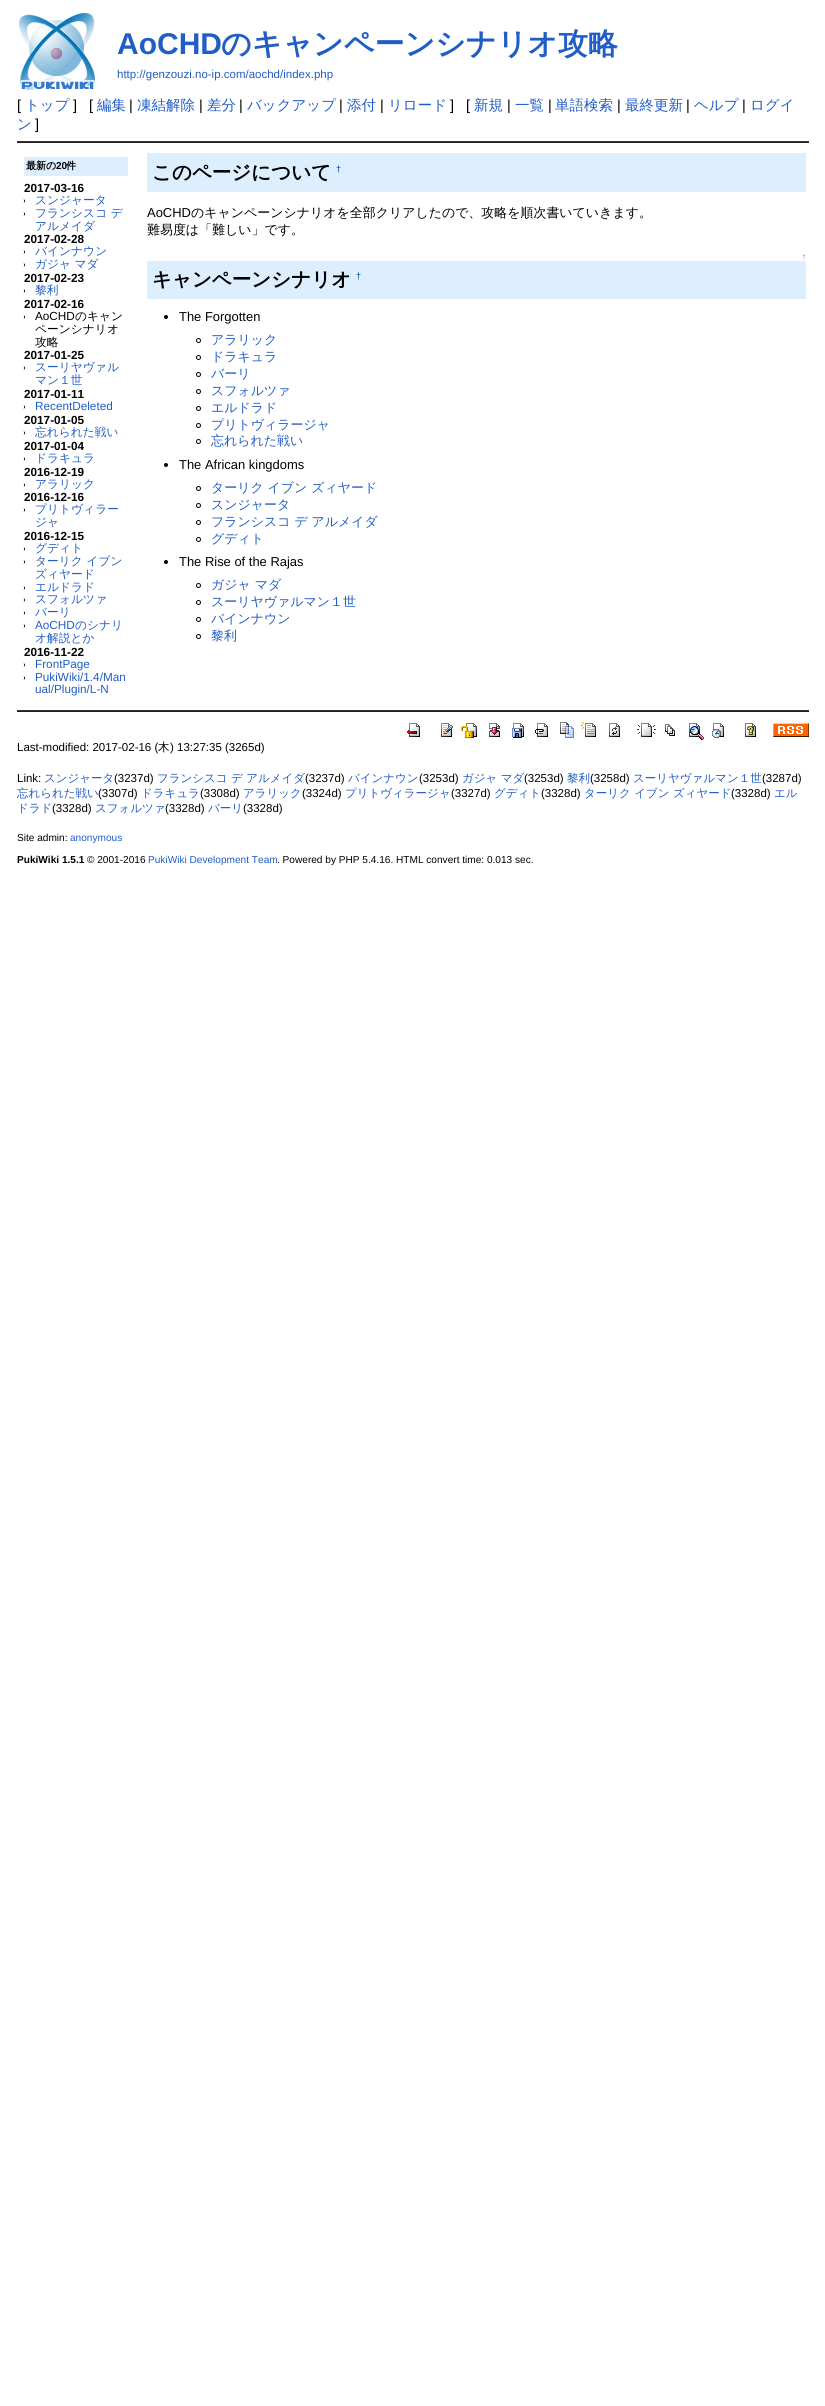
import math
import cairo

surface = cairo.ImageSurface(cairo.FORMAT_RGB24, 825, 2406)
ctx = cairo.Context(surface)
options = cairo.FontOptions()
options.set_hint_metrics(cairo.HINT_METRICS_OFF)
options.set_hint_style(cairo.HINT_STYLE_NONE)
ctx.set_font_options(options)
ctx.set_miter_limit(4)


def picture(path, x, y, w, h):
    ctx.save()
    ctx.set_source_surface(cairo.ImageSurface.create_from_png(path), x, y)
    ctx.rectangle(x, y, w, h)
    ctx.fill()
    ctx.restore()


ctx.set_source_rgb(1, 1, 1)
ctx.paint()
picture("img1.png", 19, 13, 76, 77)
ctx.select_font_face("Liberation Sans", cairo.FONT_SLANT_NORMAL, cairo.FONT_WEIGHT_BOLD)
ctx.set_font_size(30)
ctx.set_source_rgb(0.129, 0.365, 0.776)
ctx.move_to(117, 54)
ctx.show_text("AoCHD")
ctx.select_font_face("WenQuanYi Zen Hei", cairo.FONT_SLANT_NORMAL, cairo.FONT_WEIGHT_BOLD)
ctx.move_to(221, 54)
ctx.show_text("のキャンペーンシナリオ攻略")
ctx.select_font_face("Liberation Sans")
ctx.set_font_size(11.5)
ctx.move_to(117, 78)
ctx.show_text("http://genzouzi.no-ip.com/aochd/index.php")
ctx.set_font_size(14.5)
ctx.set_source_rgb(0, 0, 0)
ctx.move_to(17, 110)
ctx.show_text("[")
ctx.select_font_face("WenQuanYi Zen Hei Medium")
ctx.set_source_rgb(0.129, 0.365, 0.776)
ctx.move_to(25, 110)
ctx.show_text("トップ")
ctx.select_font_face("Liberation Sans")
ctx.set_source_rgb(0, 0, 0)
ctx.move_to(73, 110)
ctx.show_text("]")
ctx.move_to(89, 110)
ctx.show_text("[")
ctx.select_font_face("WenQuanYi Zen Hei Medium")
ctx.set_source_rgb(0.129, 0.365, 0.776)
ctx.move_to(97, 110)
ctx.show_text("編集")
ctx.select_font_face("Liberation Sans")
ctx.set_source_rgb(0, 0, 0)
ctx.move_to(129, 110)
ctx.show_text("|")
ctx.select_font_face("WenQuanYi Zen Hei Medium")
ctx.set_source_rgb(0.129, 0.365, 0.776)
ctx.move_to(137, 110)
ctx.show_text("凍結解除")
ctx.select_font_face("Liberation Sans")
ctx.set_source_rgb(0, 0, 0)
ctx.move_to(199, 110)
ctx.show_text("|")
ctx.select_font_face("WenQuanYi Zen Hei Medium")
ctx.set_source_rgb(0.129, 0.365, 0.776)
ctx.move_to(207, 110)
ctx.show_text("差分")
ctx.select_font_face("Liberation Sans")
ctx.set_source_rgb(0, 0, 0)
ctx.move_to(239, 110)
ctx.show_text("|")
ctx.select_font_face("WenQuanYi Zen Hei Medium")
ctx.set_source_rgb(0.129, 0.365, 0.776)
ctx.move_to(247, 110)
ctx.show_text("バックアップ")
ctx.select_font_face("Liberation Sans")
ctx.set_source_rgb(0, 0, 0)
ctx.move_to(339, 110)
ctx.show_text("|")
ctx.select_font_face("WenQuanYi Zen Hei Medium")
ctx.set_source_rgb(0.129, 0.365, 0.776)
ctx.move_to(347, 110)
ctx.show_text("添付")
ctx.select_font_face("Liberation Sans")
ctx.set_source_rgb(0, 0, 0)
ctx.move_to(380, 110)
ctx.show_text("|")
ctx.select_font_face("WenQuanYi Zen Hei Medium")
ctx.set_source_rgb(0.129, 0.365, 0.776)
ctx.move_to(388, 110)
ctx.show_text("リロード")
ctx.select_font_face("Liberation Sans")
ctx.set_source_rgb(0, 0, 0)
ctx.move_to(450, 110)
ctx.show_text("]")
ctx.move_to(466, 110)
ctx.show_text("[")
ctx.select_font_face("WenQuanYi Zen Hei Medium")
ctx.set_source_rgb(0.129, 0.365, 0.776)
ctx.move_to(474, 110)
ctx.show_text("新規")
ctx.select_font_face("Liberation Sans")
ctx.set_source_rgb(0, 0, 0)
ctx.move_to(507, 110)
ctx.show_text("|")
ctx.select_font_face("WenQuanYi Zen Hei Medium")
ctx.set_source_rgb(0.129, 0.365, 0.776)
ctx.move_to(515, 110)
ctx.show_text("一覧")
ctx.select_font_face("Liberation Sans")
ctx.set_source_rgb(0, 0, 0)
ctx.move_to(548, 110)
ctx.show_text("|")
ctx.select_font_face("WenQuanYi Zen Hei Medium")
ctx.set_source_rgb(0.129, 0.365, 0.776)
ctx.move_to(555, 110)
ctx.show_text("単語検索")
ctx.select_font_face("Liberation Sans")
ctx.set_source_rgb(0, 0, 0)
ctx.move_to(617, 110)
ctx.show_text("|")
ctx.select_font_face("WenQuanYi Zen Hei Medium")
ctx.set_source_rgb(0.129, 0.365, 0.776)
ctx.move_to(625, 110)
ctx.show_text("最終更新")
ctx.select_font_face("Liberation Sans")
ctx.set_source_rgb(0, 0, 0)
ctx.move_to(686, 110)
ctx.show_text("|")
ctx.select_font_face("WenQuanYi Zen Hei Medium")
ctx.set_source_rgb(0.129, 0.365, 0.776)
ctx.move_to(694, 110)
ctx.show_text("ヘルプ")
ctx.select_font_face("Liberation Sans")
ctx.set_source_rgb(0, 0, 0)
ctx.move_to(742, 110)
ctx.show_text("|")
ctx.select_font_face("WenQuanYi Zen Hei Medium")
ctx.set_source_rgb(0.129, 0.365, 0.776)
ctx.move_to(750, 110)
ctx.show_text("ログイ")
ctx.move_to(17, 129)
ctx.show_text("ン")
ctx.select_font_face("Liberation Sans")
ctx.set_source_rgb(0, 0, 0)
ctx.move_to(35, 129)
ctx.show_text("]")
ctx.set_source_rgb(0.2, 0.2, 0.2)
ctx.rectangle(17, 141, 792, 1)
ctx.fill()
ctx.set_source_rgb(0.133, 0.133, 0.133)
ctx.rectangle(17, 142, 792, 1)
ctx.fill()
ctx.set_source_rgb(0.867, 0.933, 1)
ctx.rectangle(24, 157, 104, 19)
ctx.fill()
ctx.select_font_face("WenQuanYi Zen Hei", cairo.FONT_SLANT_NORMAL, cairo.FONT_WEIGHT_BOLD)
ctx.set_font_size(10)
ctx.set_source_rgb(0, 0, 0)
ctx.move_to(26, 169)
ctx.show_text("最新の")
ctx.select_font_face("Liberation Sans", cairo.FONT_SLANT_NORMAL, cairo.FONT_WEIGHT_BOLD)
ctx.move_to(56, 169)
ctx.show_text("20")
ctx.select_font_face("WenQuanYi Zen Hei", cairo.FONT_SLANT_NORMAL, cairo.FONT_WEIGHT_BOLD)
ctx.move_to(66, 169)
ctx.show_text("件")
ctx.select_font_face("Liberation Sans", cairo.FONT_SLANT_NORMAL, cairo.FONT_WEIGHT_BOLD)
ctx.set_font_size(11.75)
ctx.move_to(24, 192)
ctx.show_text("2017-03-16")
ctx.new_path()
ctx.move_to(24, 199)
ctx.line_to(23, 199)
ctx.curve_to(24, 199, 25, 200, 25, 201)
ctx.curve_to(25, 202, 24, 203, 23, 203)
ctx.line_to(24, 203)
ctx.close_path()
ctx.fill()
ctx.select_font_face("WenQuanYi Zen Hei Medium")
ctx.set_source_rgb(0.129, 0.365, 0.776)
ctx.move_to(35, 204)
ctx.show_text("スンジャータ")
ctx.set_source_rgb(0, 0, 0)
ctx.new_path()
ctx.move_to(24, 212)
ctx.line_to(23, 212)
ctx.curve_to(24, 212, 25, 213, 25, 214)
ctx.curve_to(25, 215, 24, 216, 23, 216)
ctx.line_to(24, 216)
ctx.close_path()
ctx.fill()
ctx.set_source_rgb(0.129, 0.365, 0.776)
ctx.move_to(35, 217)
ctx.show_text("フランシスコ デ")
ctx.move_to(35, 230)
ctx.show_text("アルメイダ")
ctx.select_font_face("Liberation Sans", cairo.FONT_SLANT_NORMAL, cairo.FONT_WEIGHT_BOLD)
ctx.set_source_rgb(0, 0, 0)
ctx.move_to(24, 243)
ctx.show_text("2017-02-28")
ctx.new_path()
ctx.move_to(24, 250)
ctx.line_to(23, 250)
ctx.curve_to(24, 250, 25, 251, 25, 252)
ctx.curve_to(25, 253, 24, 254, 23, 254)
ctx.line_to(24, 254)
ctx.close_path()
ctx.fill()
ctx.select_font_face("WenQuanYi Zen Hei Medium")
ctx.set_source_rgb(0.129, 0.365, 0.776)
ctx.move_to(35, 255)
ctx.show_text("バインナウン")
ctx.set_source_rgb(0, 0, 0)
ctx.new_path()
ctx.move_to(24, 263)
ctx.line_to(23, 263)
ctx.curve_to(24, 263, 25, 264, 25, 265)
ctx.curve_to(25, 266, 24, 267, 23, 267)
ctx.line_to(24, 267)
ctx.close_path()
ctx.fill()
ctx.set_source_rgb(0.129, 0.365, 0.776)
ctx.move_to(35, 268)
ctx.show_text("ガジャ マダ")
ctx.select_font_face("Liberation Sans", cairo.FONT_SLANT_NORMAL, cairo.FONT_WEIGHT_BOLD)
ctx.set_source_rgb(0, 0, 0)
ctx.move_to(24, 282)
ctx.show_text("2017-02-23")
ctx.new_path()
ctx.move_to(24, 289)
ctx.line_to(23, 289)
ctx.curve_to(24, 289, 25, 290, 25, 291)
ctx.curve_to(25, 292, 24, 293, 23, 293)
ctx.line_to(24, 293)
ctx.close_path()
ctx.fill()
ctx.select_font_face("WenQuanYi Zen Hei Medium")
ctx.set_source_rgb(0.129, 0.365, 0.776)
ctx.move_to(35, 294)
ctx.show_text("黎利")
ctx.select_font_face("Liberation Sans", cairo.FONT_SLANT_NORMAL, cairo.FONT_WEIGHT_BOLD)
ctx.set_source_rgb(0, 0, 0)
ctx.move_to(24, 308)
ctx.show_text("2017-02-16")
ctx.new_path()
ctx.move_to(24, 315)
ctx.line_to(23, 315)
ctx.curve_to(24, 315, 25, 316, 25, 317)
ctx.curve_to(25, 318, 24, 319, 23, 319)
ctx.line_to(24, 319)
ctx.close_path()
ctx.fill()
ctx.select_font_face("Liberation Sans")
ctx.move_to(35, 320)
ctx.show_text("AoCHD")
ctx.select_font_face("WenQuanYi Zen Hei Medium")
ctx.move_to(75, 320)
ctx.show_text("のキャン")
ctx.move_to(35, 333)
ctx.show_text("ペーンシナリオ")
ctx.move_to(35, 346)
ctx.show_text("攻略")
ctx.select_font_face("Liberation Sans", cairo.FONT_SLANT_NORMAL, cairo.FONT_WEIGHT_BOLD)
ctx.move_to(24, 359)
ctx.show_text("2017-01-25")
ctx.new_path()
ctx.move_to(24, 366)
ctx.line_to(23, 366)
ctx.curve_to(24, 366, 25, 367, 25, 368)
ctx.curve_to(25, 369, 24, 370, 23, 370)
ctx.line_to(24, 370)
ctx.close_path()
ctx.fill()
ctx.select_font_face("WenQuanYi Zen Hei Medium")
ctx.set_source_rgb(0.129, 0.365, 0.776)
ctx.move_to(35, 371)
ctx.show_text("スーリヤヴァル")
ctx.move_to(35, 384)
ctx.show_text("マン１世")
ctx.select_font_face("Liberation Sans", cairo.FONT_SLANT_NORMAL, cairo.FONT_WEIGHT_BOLD)
ctx.set_source_rgb(0, 0, 0)
ctx.move_to(24, 398)
ctx.show_text("2017-01-11")
ctx.new_path()
ctx.move_to(24, 405)
ctx.line_to(23, 405)
ctx.curve_to(24, 405, 25, 406, 25, 407)
ctx.curve_to(25, 408, 24, 409, 23, 409)
ctx.line_to(24, 409)
ctx.close_path()
ctx.fill()
ctx.select_font_face("Liberation Sans")
ctx.set_source_rgb(0.129, 0.365, 0.776)
ctx.move_to(35, 410)
ctx.show_text("RecentDeleted")
ctx.select_font_face("Liberation Sans", cairo.FONT_SLANT_NORMAL, cairo.FONT_WEIGHT_BOLD)
ctx.set_source_rgb(0, 0, 0)
ctx.move_to(24, 424)
ctx.show_text("2017-01-05")
ctx.new_path()
ctx.move_to(24, 431)
ctx.line_to(23, 431)
ctx.curve_to(24, 431, 25, 432, 25, 433)
ctx.curve_to(25, 434, 24, 435, 23, 435)
ctx.line_to(24, 435)
ctx.close_path()
ctx.fill()
ctx.select_font_face("WenQuanYi Zen Hei Medium")
ctx.set_source_rgb(0.129, 0.365, 0.776)
ctx.move_to(35, 436)
ctx.show_text("忘れられた戦い")
ctx.select_font_face("Liberation Sans", cairo.FONT_SLANT_NORMAL, cairo.FONT_WEIGHT_BOLD)
ctx.set_source_rgb(0, 0, 0)
ctx.move_to(24, 450)
ctx.show_text("2017-01-04")
ctx.new_path()
ctx.move_to(24, 457)
ctx.line_to(23, 457)
ctx.curve_to(24, 457, 25, 458, 25, 459)
ctx.curve_to(25, 460, 24, 461, 23, 461)
ctx.line_to(24, 461)
ctx.close_path()
ctx.fill()
ctx.select_font_face("WenQuanYi Zen Hei Medium")
ctx.set_source_rgb(0.129, 0.365, 0.776)
ctx.move_to(35, 462)
ctx.show_text("ドラキュラ")
ctx.select_font_face("Liberation Sans", cairo.FONT_SLANT_NORMAL, cairo.FONT_WEIGHT_BOLD)
ctx.set_source_rgb(0, 0, 0)
ctx.move_to(24, 476)
ctx.show_text("2016-12-19")
ctx.new_path()
ctx.move_to(24, 483)
ctx.line_to(23, 483)
ctx.curve_to(24, 483, 25, 484, 25, 485)
ctx.curve_to(25, 486, 24, 487, 23, 487)
ctx.line_to(24, 487)
ctx.close_path()
ctx.fill()
ctx.select_font_face("WenQuanYi Zen Hei Medium")
ctx.set_source_rgb(0.129, 0.365, 0.776)
ctx.move_to(35, 488)
ctx.show_text("アラリック")
ctx.select_font_face("Liberation Sans", cairo.FONT_SLANT_NORMAL, cairo.FONT_WEIGHT_BOLD)
ctx.set_source_rgb(0, 0, 0)
ctx.move_to(24, 501)
ctx.show_text("2016-12-16")
ctx.new_path()
ctx.move_to(24, 508)
ctx.line_to(23, 508)
ctx.curve_to(24, 508, 25, 509, 25, 510)
ctx.curve_to(25, 511, 24, 512, 23, 512)
ctx.line_to(24, 512)
ctx.close_path()
ctx.fill()
ctx.select_font_face("WenQuanYi Zen Hei Medium")
ctx.set_source_rgb(0.129, 0.365, 0.776)
ctx.move_to(35, 513)
ctx.show_text("プリトヴィラー")
ctx.move_to(35, 526)
ctx.show_text("ジャ")
ctx.select_font_face("Liberation Sans", cairo.FONT_SLANT_NORMAL, cairo.FONT_WEIGHT_BOLD)
ctx.set_source_rgb(0, 0, 0)
ctx.move_to(24, 540)
ctx.show_text("2016-12-15")
ctx.new_path()
ctx.move_to(24, 547)
ctx.line_to(23, 547)
ctx.curve_to(24, 547, 25, 548, 25, 549)
ctx.curve_to(25, 550, 24, 551, 23, 551)
ctx.line_to(24, 551)
ctx.close_path()
ctx.fill()
ctx.select_font_face("WenQuanYi Zen Hei Medium")
ctx.set_source_rgb(0.129, 0.365, 0.776)
ctx.move_to(35, 552)
ctx.show_text("グディト")
ctx.set_source_rgb(0, 0, 0)
ctx.new_path()
ctx.move_to(24, 560)
ctx.line_to(23, 560)
ctx.curve_to(24, 560, 25, 561, 25, 562)
ctx.curve_to(25, 563, 24, 564, 23, 564)
ctx.line_to(24, 564)
ctx.close_path()
ctx.fill()
ctx.set_source_rgb(0.129, 0.365, 0.776)
ctx.move_to(35, 565)
ctx.show_text("ターリク イブン")
ctx.move_to(35, 578)
ctx.show_text("ズィヤード")
ctx.set_source_rgb(0, 0, 0)
ctx.new_path()
ctx.move_to(24, 586)
ctx.line_to(23, 586)
ctx.curve_to(24, 586, 25, 587, 25, 588)
ctx.curve_to(25, 589, 24, 590, 23, 590)
ctx.line_to(24, 590)
ctx.close_path()
ctx.fill()
ctx.set_source_rgb(0.129, 0.365, 0.776)
ctx.move_to(35, 591)
ctx.show_text("エルドラド")
ctx.set_source_rgb(0, 0, 0)
ctx.new_path()
ctx.move_to(24, 598)
ctx.line_to(23, 598)
ctx.curve_to(24, 598, 25, 599, 25, 600)
ctx.curve_to(25, 601, 24, 602, 23, 602)
ctx.line_to(24, 602)
ctx.close_path()
ctx.fill()
ctx.set_source_rgb(0.129, 0.365, 0.776)
ctx.move_to(35, 603)
ctx.show_text("スフォルツァ")
ctx.set_source_rgb(0, 0, 0)
ctx.new_path()
ctx.move_to(24, 611)
ctx.line_to(23, 611)
ctx.curve_to(24, 611, 25, 612, 25, 613)
ctx.curve_to(25, 614, 24, 615, 23, 615)
ctx.line_to(24, 615)
ctx.close_path()
ctx.fill()
ctx.set_source_rgb(0.129, 0.365, 0.776)
ctx.move_to(35, 616)
ctx.show_text("バーリ")
ctx.set_source_rgb(0, 0, 0)
ctx.new_path()
ctx.move_to(24, 624)
ctx.line_to(23, 624)
ctx.curve_to(24, 624, 25, 625, 25, 626)
ctx.curve_to(25, 627, 24, 628, 23, 628)
ctx.line_to(24, 628)
ctx.close_path()
ctx.fill()
ctx.select_font_face("Liberation Sans")
ctx.set_source_rgb(0.129, 0.365, 0.776)
ctx.move_to(35, 629)
ctx.show_text("AoCHD")
ctx.select_font_face("WenQuanYi Zen Hei Medium")
ctx.move_to(75, 629)
ctx.show_text("のシナリ")
ctx.move_to(35, 642)
ctx.show_text("オ解説とか")
ctx.select_font_face("Liberation Sans", cairo.FONT_SLANT_NORMAL, cairo.FONT_WEIGHT_BOLD)
ctx.set_source_rgb(0, 0, 0)
ctx.move_to(24, 656)
ctx.show_text("2016-11-22")
ctx.new_path()
ctx.move_to(24, 663)
ctx.line_to(23, 663)
ctx.curve_to(24, 663, 25, 664, 25, 665)
ctx.curve_to(25, 666, 24, 667, 23, 667)
ctx.line_to(24, 667)
ctx.close_path()
ctx.fill()
ctx.select_font_face("Liberation Sans")
ctx.set_source_rgb(0.129, 0.365, 0.776)
ctx.move_to(35, 668)
ctx.show_text("FrontPage")
ctx.set_source_rgb(0, 0, 0)
ctx.new_path()
ctx.move_to(24, 676)
ctx.line_to(23, 676)
ctx.curve_to(24, 676, 25, 677, 25, 678)
ctx.curve_to(25, 679, 24, 680, 23, 680)
ctx.line_to(24, 680)
ctx.close_path()
ctx.fill()
ctx.set_source_rgb(0.129, 0.365, 0.776)
ctx.move_to(35, 681)
ctx.show_text("PukiWiki/1.4/Man")
ctx.move_to(35, 693)
ctx.show_text("ual/Plugin/L-N")
ctx.set_source_rgb(0.867, 0.933, 1)
ctx.rectangle(147, 153, 659, 39)
ctx.fill()
ctx.select_font_face("WenQuanYi Zen Hei", cairo.FONT_SLANT_NORMAL, cairo.FONT_WEIGHT_BOLD)
ctx.set_font_size(19.5)
ctx.set_source_rgb(0, 0, 0)
ctx.move_to(152, 179)
ctx.show_text("このページについて")
ctx.select_font_face("Liberation Sans", cairo.FONT_SLANT_NORMAL, cairo.FONT_WEIGHT_BOLD)
ctx.set_font_size(9)
ctx.set_source_rgb(0.129, 0.365, 0.776)
ctx.move_to(336, 172)
ctx.show_text("†")
ctx.select_font_face("Liberation Sans")
ctx.set_font_size(12.95)
ctx.set_source_rgb(0, 0, 0)
ctx.move_to(147, 217)
ctx.show_text("AoCHD")
ctx.select_font_face("WenQuanYi Zen Hei Medium")
ctx.move_to(191, 217)
ctx.show_text("のキャンペーンシナリオを全部クリアしたので、攻略を順次書いていきます。")
ctx.move_to(147, 234)
ctx.show_text("難易度は「難しい」です。")
ctx.select_font_face("Liberation Sans")
ctx.set_font_size(8)
ctx.set_source_rgb(0.129, 0.365, 0.776)
ctx.move_to(802, 259)
ctx.show_text("↑")
ctx.set_source_rgb(0.867, 0.933, 1)
ctx.rectangle(147, 261, 659, 38)
ctx.fill()
ctx.select_font_face("WenQuanYi Zen Hei", cairo.FONT_SLANT_NORMAL, cairo.FONT_WEIGHT_BOLD)
ctx.set_font_size(19.5)
ctx.set_source_rgb(0, 0, 0)
ctx.move_to(152, 286)
ctx.show_text("キャンペーンシナリオ")
ctx.select_font_face("Liberation Sans", cairo.FONT_SLANT_NORMAL, cairo.FONT_WEIGHT_BOLD)
ctx.set_font_size(9)
ctx.set_source_rgb(0.129, 0.365, 0.776)
ctx.move_to(356, 279)
ctx.show_text("†")
ctx.set_source_rgb(0, 0, 0)
ctx.new_path()
ctx.arc(166, 317, 2, 0, 2 * math.pi)
ctx.fill()
ctx.select_font_face("Liberation Sans")
ctx.set_font_size(12.95)
ctx.move_to(179, 321)
ctx.show_text("The Forgotten")
ctx.new_path()
ctx.arc(198.5, 340.5, 2, 0, 2 * math.pi)
ctx.set_line_width(1)
ctx.stroke()
ctx.select_font_face("WenQuanYi Zen Hei Medium")
ctx.set_source_rgb(0.129, 0.365, 0.776)
ctx.move_to(211, 344)
ctx.show_text("アラリック")
ctx.new_path()
ctx.arc(198.5, 357.5, 2, 0, 2 * math.pi)
ctx.set_source_rgb(0, 0, 0)
ctx.stroke()
ctx.set_source_rgb(0.129, 0.365, 0.776)
ctx.move_to(211, 361)
ctx.show_text("ドラキュラ")
ctx.new_path()
ctx.arc(198.5, 374.5, 2, 0, 2 * math.pi)
ctx.set_source_rgb(0, 0, 0)
ctx.stroke()
ctx.set_source_rgb(0.129, 0.365, 0.776)
ctx.move_to(211, 378)
ctx.show_text("バーリ")
ctx.new_path()
ctx.arc(198.5, 391.5, 2, 0, 2 * math.pi)
ctx.set_source_rgb(0, 0, 0)
ctx.stroke()
ctx.set_source_rgb(0.129, 0.365, 0.776)
ctx.move_to(211, 395)
ctx.show_text("スフォルツァ")
ctx.new_path()
ctx.arc(198.5, 408.5, 2, 0, 2 * math.pi)
ctx.set_source_rgb(0, 0, 0)
ctx.stroke()
ctx.set_source_rgb(0.129, 0.365, 0.776)
ctx.move_to(211, 412)
ctx.show_text("エルドラド")
ctx.new_path()
ctx.arc(198.5, 425.5, 2, 0, 2 * math.pi)
ctx.set_source_rgb(0, 0, 0)
ctx.stroke()
ctx.set_source_rgb(0.129, 0.365, 0.776)
ctx.move_to(211, 429)
ctx.show_text("プリトヴィラージャ")
ctx.new_path()
ctx.arc(198.5, 441.5, 2, 0, 2 * math.pi)
ctx.set_source_rgb(0, 0, 0)
ctx.stroke()
ctx.set_source_rgb(0.129, 0.365, 0.776)
ctx.move_to(211, 445)
ctx.show_text("忘れられた戦い")
ctx.set_source_rgb(0, 0, 0)
ctx.new_path()
ctx.arc(166, 465, 2, 0, 2 * math.pi)
ctx.fill()
ctx.select_font_face("Liberation Sans")
ctx.move_to(179, 469)
ctx.show_text("The African kingdoms")
ctx.new_path()
ctx.arc(198.5, 488.5, 2, 0, 2 * math.pi)
ctx.stroke()
ctx.select_font_face("WenQuanYi Zen Hei Medium")
ctx.set_source_rgb(0.129, 0.365, 0.776)
ctx.move_to(211, 492)
ctx.show_text("ターリク イブン ズィヤード")
ctx.new_path()
ctx.arc(198.5, 505.5, 2, 0, 2 * math.pi)
ctx.set_source_rgb(0, 0, 0)
ctx.stroke()
ctx.set_source_rgb(0.129, 0.365, 0.776)
ctx.move_to(211, 509)
ctx.show_text("スンジャータ")
ctx.new_path()
ctx.arc(198.5, 522.5, 2, 0, 2 * math.pi)
ctx.set_source_rgb(0, 0, 0)
ctx.stroke()
ctx.set_source_rgb(0.129, 0.365, 0.776)
ctx.move_to(211, 526)
ctx.show_text("フランシスコ デ アルメイダ")
ctx.new_path()
ctx.arc(198.5, 539.5, 2, 0, 2 * math.pi)
ctx.set_source_rgb(0, 0, 0)
ctx.stroke()
ctx.set_source_rgb(0.129, 0.365, 0.776)
ctx.move_to(211, 543)
ctx.show_text("グディト")
ctx.set_source_rgb(0, 0, 0)
ctx.new_path()
ctx.arc(166, 562, 2, 0, 2 * math.pi)
ctx.fill()
ctx.select_font_face("Liberation Sans")
ctx.move_to(179, 566)
ctx.show_text("The Rise of the Rajas")
ctx.new_path()
ctx.arc(198.5, 585.5, 2, 0, 2 * math.pi)
ctx.stroke()
ctx.select_font_face("WenQuanYi Zen Hei Medium")
ctx.set_source_rgb(0.129, 0.365, 0.776)
ctx.move_to(211, 589)
ctx.show_text("ガジャ マダ")
ctx.new_path()
ctx.arc(198.5, 602.5, 2, 0, 2 * math.pi)
ctx.set_source_rgb(0, 0, 0)
ctx.stroke()
ctx.set_source_rgb(0.129, 0.365, 0.776)
ctx.move_to(211, 606)
ctx.show_text("スーリヤヴァルマン１世")
ctx.new_path()
ctx.arc(198.5, 619.5, 2, 0, 2 * math.pi)
ctx.set_source_rgb(0, 0, 0)
ctx.stroke()
ctx.set_source_rgb(0.129, 0.365, 0.776)
ctx.move_to(211, 623)
ctx.show_text("バインナウン")
ctx.new_path()
ctx.arc(198.5, 636.5, 2, 0, 2 * math.pi)
ctx.set_source_rgb(0, 0, 0)
ctx.stroke()
ctx.set_source_rgb(0.129, 0.365, 0.776)
ctx.move_to(211, 640)
ctx.show_text("黎利")
ctx.set_source_rgb(0.2, 0.2, 0.2)
ctx.rectangle(17, 710, 792, 1)
ctx.fill()
ctx.set_source_rgb(0.133, 0.133, 0.133)
ctx.rectangle(17, 711, 792, 1)
ctx.fill()
picture("img2.png", 407, 723, 13, 14)
picture("img3.png", 441, 723, 12, 14)
picture("img4.png", 461, 723, 16, 15)
picture("img5.png", 489, 723, 11, 14)
picture("img6.png", 512, 723, 12, 15)
picture("img7.png", 535, 723, 13, 14)
picture("img8.png", 560, 722, 14, 16)
picture("img9.png", 581, 722, 15, 15)
picture("img10.png", 609, 723, 11, 14)
picture("img11.png", 637, 723, 19, 14)
picture("img12.png", 665, 724, 10, 12)
picture("img13.png", 689, 723, 15, 17)
picture("img14.png", 712, 723, 12, 15)
picture("img15.png", 745, 723, 11, 14)
picture("img16.png", 773, 723, 36, 14)
ctx.select_font_face("Liberation Sans")
ctx.set_font_size(11.5)
ctx.set_source_rgb(0, 0, 0)
ctx.move_to(17, 751)
ctx.show_text("Last-modified: 2017-02-16 (")
ctx.select_font_face("WenQuanYi Zen Hei Medium")
ctx.move_to(158, 751)
ctx.show_text("木")
ctx.select_font_face("Liberation Sans")
ctx.move_to(170, 751)
ctx.show_text(") 13:27:35 (3265d)")
ctx.move_to(17, 782)
ctx.show_text("Link:")
ctx.select_font_face("WenQuanYi Zen Hei Medium")
ctx.set_source_rgb(0.129, 0.365, 0.776)
ctx.move_to(44, 782)
ctx.show_text("スンジャータ")
ctx.select_font_face("Liberation Sans")
ctx.set_source_rgb(0, 0, 0)
ctx.move_to(114, 782)
ctx.show_text("(3237d)")
ctx.select_font_face("WenQuanYi Zen Hei Medium")
ctx.set_source_rgb(0.129, 0.365, 0.776)
ctx.move_to(157, 782)
ctx.show_text("フランシスコ デ アルメイダ")
ctx.select_font_face("Liberation Sans")
ctx.set_source_rgb(0, 0, 0)
ctx.move_to(305, 782)
ctx.show_text("(3237d)")
ctx.select_font_face("WenQuanYi Zen Hei Medium")
ctx.set_source_rgb(0.129, 0.365, 0.776)
ctx.move_to(348, 782)
ctx.show_text("バインナウン")
ctx.select_font_face("Liberation Sans")
ctx.set_source_rgb(0, 0, 0)
ctx.move_to(419, 782)
ctx.show_text("(3253d)")
ctx.select_font_face("WenQuanYi Zen Hei Medium")
ctx.set_source_rgb(0.129, 0.365, 0.776)
ctx.move_to(462, 782)
ctx.show_text("ガジャ マダ")
ctx.select_font_face("Liberation Sans")
ctx.set_source_rgb(0, 0, 0)
ctx.move_to(524, 782)
ctx.show_text("(3253d)")
ctx.select_font_face("WenQuanYi Zen Hei Medium")
ctx.set_source_rgb(0.129, 0.365, 0.776)
ctx.move_to(567, 782)
ctx.show_text("黎利")
ctx.select_font_face("Liberation Sans")
ctx.set_source_rgb(0, 0, 0)
ctx.move_to(590, 782)
ctx.show_text("(3258d)")
ctx.select_font_face("WenQuanYi Zen Hei Medium")
ctx.set_source_rgb(0.129, 0.365, 0.776)
ctx.move_to(633, 782)
ctx.show_text("スーリヤヴァルマン１世")
ctx.select_font_face("Liberation Sans")
ctx.set_source_rgb(0, 0, 0)
ctx.move_to(762, 782)
ctx.show_text("(3287d)")
ctx.select_font_face("WenQuanYi Zen Hei Medium")
ctx.set_source_rgb(0.129, 0.365, 0.776)
ctx.move_to(17, 797)
ctx.show_text("忘れられた戦い")
ctx.select_font_face("Liberation Sans")
ctx.set_source_rgb(0, 0, 0)
ctx.move_to(98, 797)
ctx.show_text("(3307d)")
ctx.select_font_face("WenQuanYi Zen Hei Medium")
ctx.set_source_rgb(0.129, 0.365, 0.776)
ctx.move_to(141, 797)
ctx.show_text("ドラキュラ")
ctx.select_font_face("Liberation Sans")
ctx.set_source_rgb(0, 0, 0)
ctx.move_to(200, 797)
ctx.show_text("(3308d)")
ctx.select_font_face("WenQuanYi Zen Hei Medium")
ctx.set_source_rgb(0.129, 0.365, 0.776)
ctx.move_to(243, 797)
ctx.show_text("アラリック")
ctx.select_font_face("Liberation Sans")
ctx.set_source_rgb(0, 0, 0)
ctx.move_to(302, 797)
ctx.show_text("(3324d)")
ctx.select_font_face("WenQuanYi Zen Hei Medium")
ctx.set_source_rgb(0.129, 0.365, 0.776)
ctx.move_to(345, 797)
ctx.show_text("プリトヴィラージャ")
ctx.select_font_face("Liberation Sans")
ctx.set_source_rgb(0, 0, 0)
ctx.move_to(451, 797)
ctx.show_text("(3327d)")
ctx.select_font_face("WenQuanYi Zen Hei Medium")
ctx.set_source_rgb(0.129, 0.365, 0.776)
ctx.move_to(494, 797)
ctx.show_text("グディト")
ctx.select_font_face("Liberation Sans")
ctx.set_source_rgb(0, 0, 0)
ctx.move_to(541, 797)
ctx.show_text("(3328d)")
ctx.select_font_face("WenQuanYi Zen Hei Medium")
ctx.set_source_rgb(0.129, 0.365, 0.776)
ctx.move_to(584, 797)
ctx.show_text("ターリク イブン ズィヤード")
ctx.select_font_face("Liberation Sans")
ctx.set_source_rgb(0, 0, 0)
ctx.move_to(731, 797)
ctx.show_text("(3328d)")
ctx.select_font_face("WenQuanYi Zen Hei Medium")
ctx.set_source_rgb(0.129, 0.365, 0.776)
ctx.move_to(774, 797)
ctx.show_text("エル")
ctx.move_to(17, 812)
ctx.show_text("ドラド")
ctx.select_font_face("Liberation Sans")
ctx.set_source_rgb(0, 0, 0)
ctx.move_to(52, 812)
ctx.show_text("(3328d)")
ctx.select_font_face("WenQuanYi Zen Hei Medium")
ctx.set_source_rgb(0.129, 0.365, 0.776)
ctx.move_to(95, 812)
ctx.show_text("スフォルツァ")
ctx.select_font_face("Liberation Sans")
ctx.set_source_rgb(0, 0, 0)
ctx.move_to(165, 812)
ctx.show_text("(3328d)")
ctx.select_font_face("WenQuanYi Zen Hei Medium")
ctx.set_source_rgb(0.129, 0.365, 0.776)
ctx.move_to(208, 812)
ctx.show_text("バーリ")
ctx.select_font_face("Liberation Sans")
ctx.set_source_rgb(0, 0, 0)
ctx.move_to(243, 812)
ctx.show_text("(3328d)")
ctx.set_font_size(10.1)
ctx.move_to(17, 841)
ctx.show_text("Site admin:")
ctx.set_source_rgb(0.129, 0.365, 0.776)
ctx.move_to(70, 841)
ctx.show_text("anonymous")
ctx.select_font_face("Liberation Sans", cairo.FONT_SLANT_NORMAL, cairo.FONT_WEIGHT_BOLD)
ctx.set_source_rgb(0, 0, 0)
ctx.move_to(17, 863)
ctx.show_text("PukiWiki 1.5.1")
ctx.select_font_face("Liberation Sans")
ctx.move_to(87, 863)
ctx.show_text("© 2001-2016")
ctx.set_source_rgb(0.129, 0.365, 0.776)
ctx.move_to(148, 863)
ctx.show_text("PukiWiki Development Team")
ctx.set_source_rgb(0, 0, 0)
ctx.move_to(277, 863)
ctx.show_text(". Powered by PHP 5.4.16. HTML convert time: 0.013 sec.")
surface.write_to_png("page.png")
